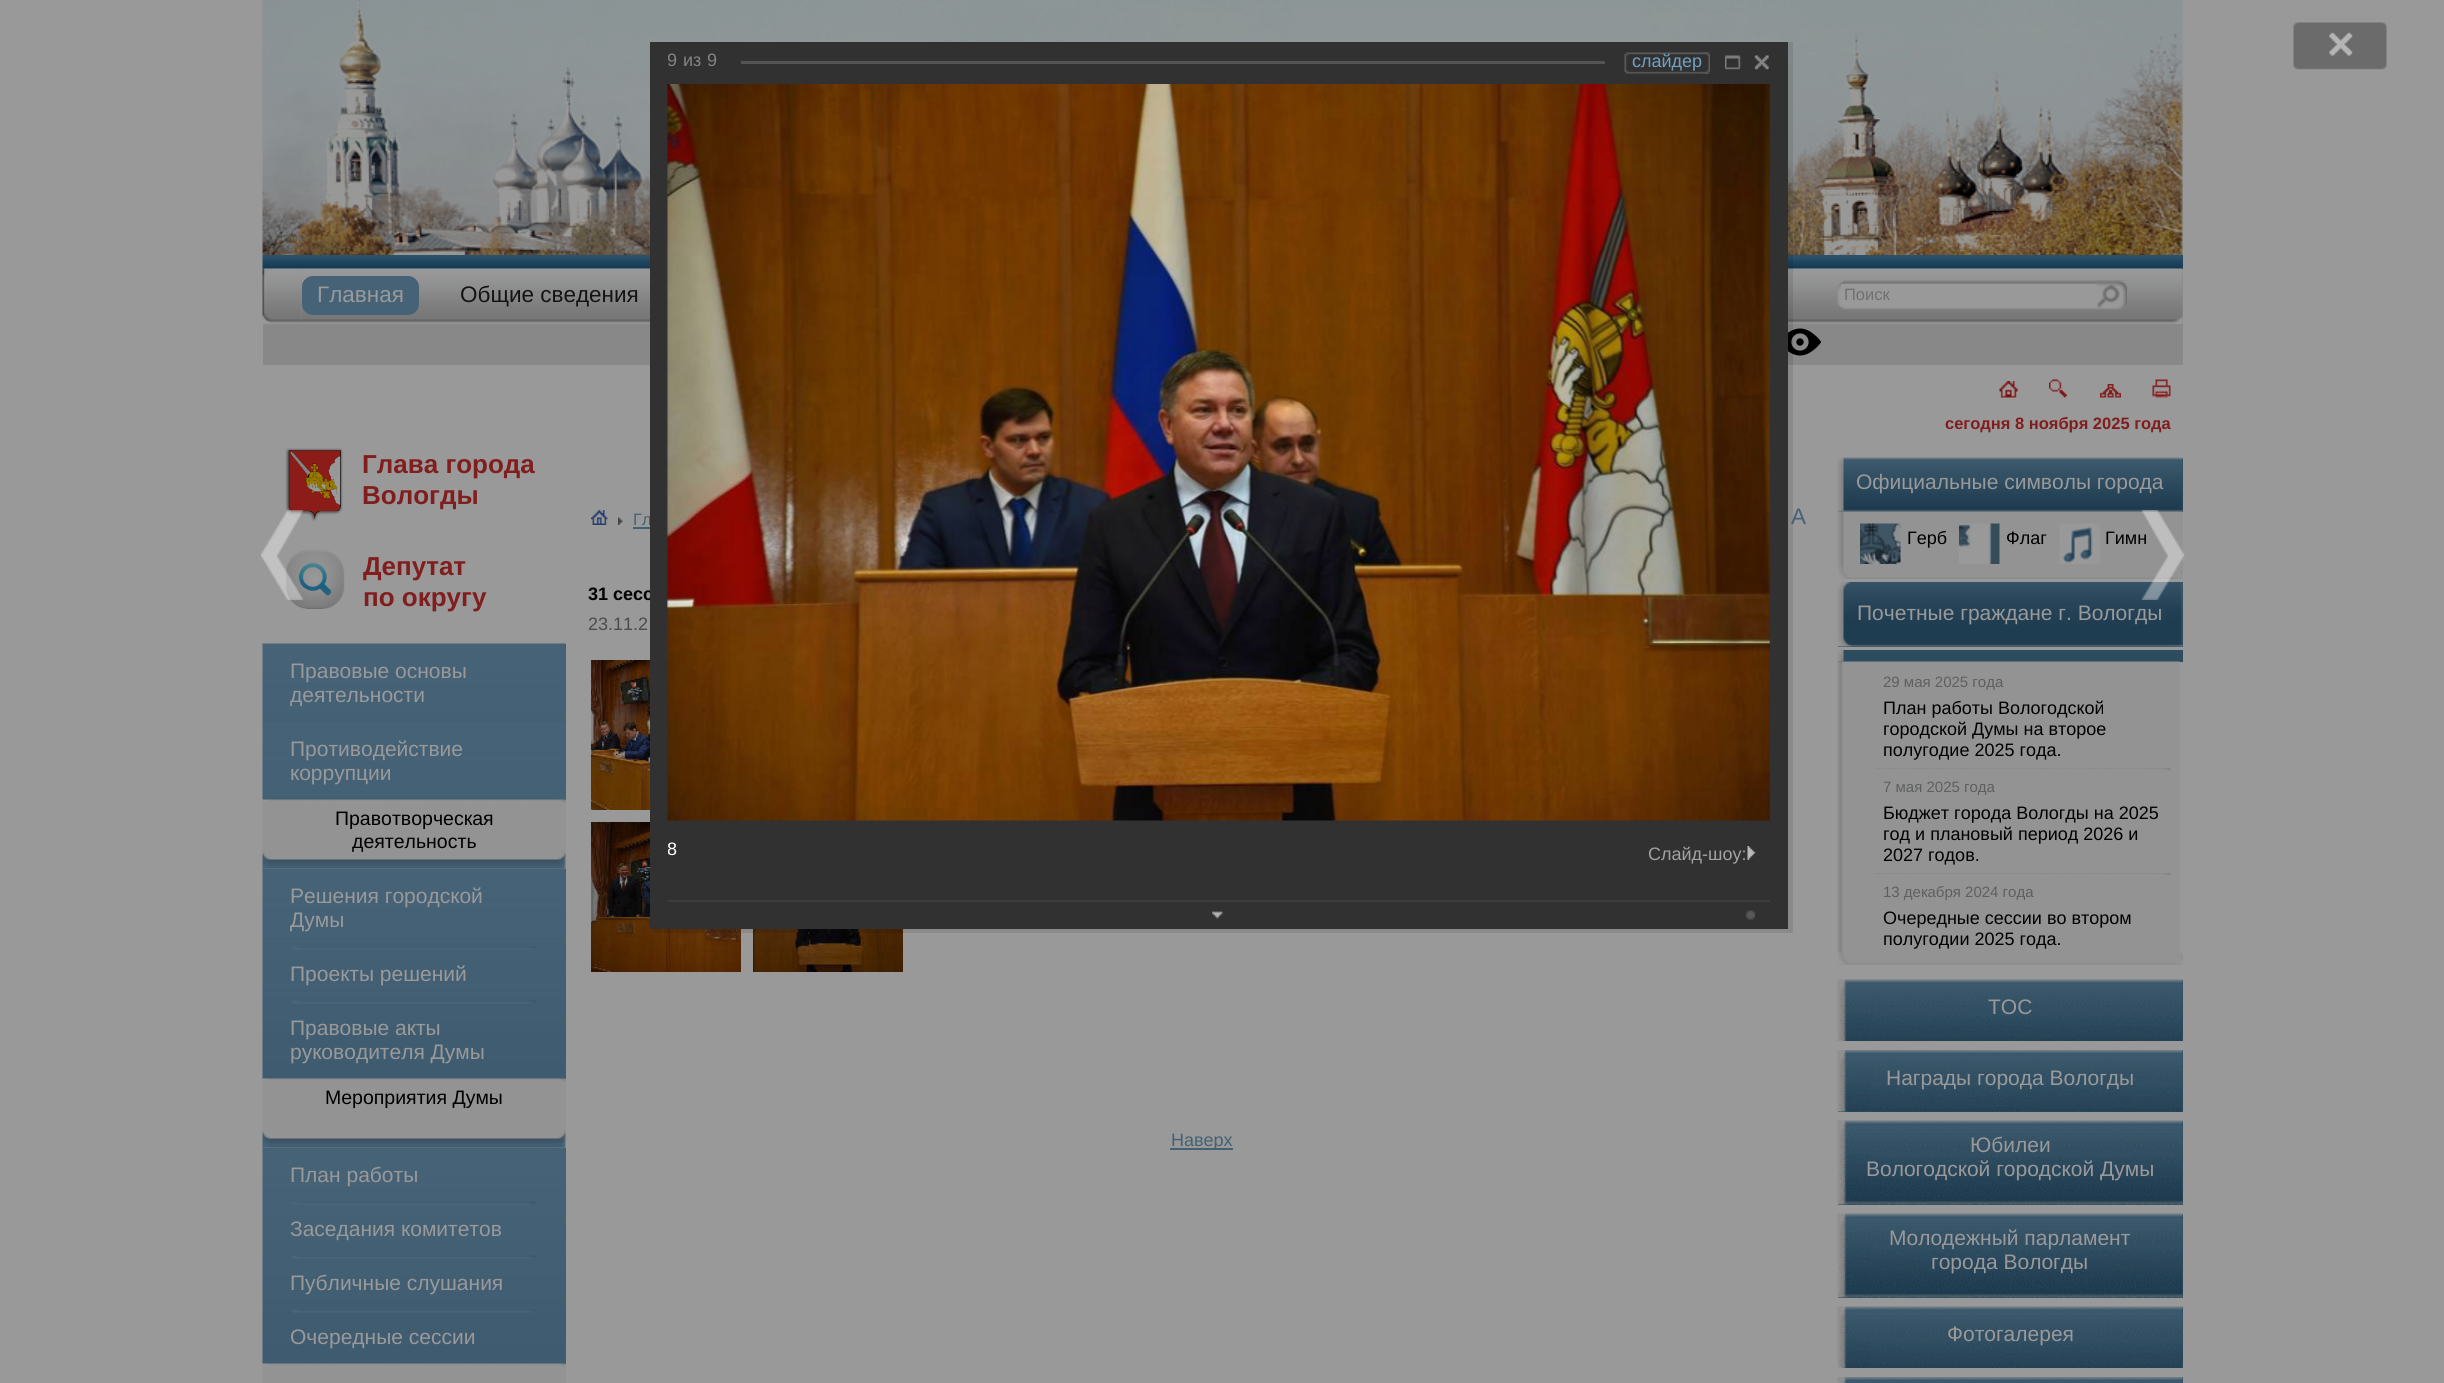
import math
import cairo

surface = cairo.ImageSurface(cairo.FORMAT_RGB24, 2444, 1383)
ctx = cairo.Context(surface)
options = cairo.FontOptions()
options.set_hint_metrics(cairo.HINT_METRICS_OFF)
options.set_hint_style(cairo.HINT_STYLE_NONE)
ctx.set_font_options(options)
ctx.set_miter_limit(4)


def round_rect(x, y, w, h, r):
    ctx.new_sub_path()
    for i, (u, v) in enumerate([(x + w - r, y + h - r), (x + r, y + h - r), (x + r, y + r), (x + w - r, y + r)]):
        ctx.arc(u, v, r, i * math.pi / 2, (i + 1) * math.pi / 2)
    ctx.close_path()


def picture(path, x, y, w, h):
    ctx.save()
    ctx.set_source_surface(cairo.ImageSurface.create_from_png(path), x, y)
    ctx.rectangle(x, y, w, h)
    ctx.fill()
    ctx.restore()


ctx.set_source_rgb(0.6, 0.6, 0.6)
ctx.paint()
picture("img22.png", 285, 448, 58, 74)
picture("img23.png", 285, 550, 60, 59)
picture("img1.png", 261, 510, 43, 90)
picture("img12.png", 262, 0, 1031, 255)
ctx.set_source_rgb(0.557, 0.569, 0.576)
ctx.rectangle(2182, 0, 1, 255)
ctx.fill()
picture("img14.png", 1638, 0, 545, 255)
ctx.set_source_rgb(0.125, 0.275, 0.376)
ctx.rectangle(263, 255, 1920, 14)
ctx.fill()
picture("img15.png", 262, 255, 1921, 14)
ctx.set_source_rgb(0.533, 0.533, 0.533)
ctx.rectangle(302, 324, 1855, 41)
ctx.fill()
ctx.rectangle(263, 269, 39, 96)
ctx.fill()
picture("img16.png", 262, 268, 40, 56)
picture("img17.png", 301, 268, 1856, 56)
picture("img20.png", 1788, 328, 33, 28)
picture("img39.png", 591, 822, 150, 150)
picture("img40.png", 753, 929, 150, 43)
ctx.set_source_rgba(0, 0, 0, 0.1)
ctx.rectangle(654, 42, 1139, 891)
ctx.fill()
ctx.select_font_face("Liberation Sans")
ctx.set_font_size(16.5)
ctx.set_source_rgb(0.267, 0.38, 0.455)
ctx.move_to(633, 525)
ctx.show_text("Гл")
ctx.select_font_face("Liberation Sans", cairo.FONT_SLANT_NORMAL, cairo.FONT_WEIGHT_BOLD)
ctx.set_font_size(18)
ctx.set_source_rgb(0, 0, 0)
ctx.move_to(588, 600)
ctx.show_text("31 сесс")
ctx.set_source_rgb(0.192, 0.192, 0.192)
ctx.rectangle(650, 42, 1138, 887)
ctx.fill()
ctx.save()
ctx.rectangle(668, 42, 1102, 42)
ctx.clip()
ctx.select_font_face("Liberation Sans")
ctx.set_source_rgb(0.514, 0.514, 0.514)
ctx.move_to(667, 66)
ctx.show_text("9")
ctx.restore()
ctx.select_font_face("Liberation Sans")
ctx.set_source_rgb(0.514, 0.514, 0.514)
ctx.move_to(683, 66)
ctx.show_text("из")
ctx.move_to(707, 66)
ctx.show_text("9")
ctx.set_source_rgb(0.325, 0.325, 0.325)
ctx.rectangle(741, 61, 864, 3)
ctx.fill()
picture("img2.png", 1624, 52, 86, 22)
ctx.set_source_rgb(0.443, 0.631, 0.757)
ctx.move_to(1632, 67)
ctx.show_text("слайдер")
picture("img3.png", 1702, 52, 8, 22)
picture("img4.png", 1725, 55, 16, 15)
picture("img5.png", 1754, 55, 15, 15)
picture("img6.png", 667, 84, 1103, 737)
ctx.set_source_rgb(0.239, 0.239, 0.239)
ctx.rectangle(668, 900, 1102, 2)
ctx.fill()
ctx.save()
ctx.rectangle(668, 825, 1102, 75)
ctx.clip()
ctx.set_source_rgb(1, 1, 1)
ctx.move_to(667, 855)
ctx.show_text("8")
ctx.restore()
ctx.set_source_rgb(0.635, 0.635, 0.635)
ctx.move_to(1648, 860)
ctx.show_text("Слайд-шоу:")
picture("img7.png", 1747, 846, 9, 14)
picture("img8.png", 1212, 911, 11, 8)
picture("img9.png", 1746, 910, 9, 10)
picture("img10.png", 2293, 22, 94, 48)
ctx.set_source_rgb(0.18, 0.298, 0.373)
ctx.rectangle(1838, 458, 345, 54)
ctx.fill()
picture("img45.png", 1837, 457, 346, 55)
ctx.set_source_rgb(0.576, 0.576, 0.576)
ctx.rectangle(2182, 512, 1, 67)
ctx.fill()
picture("img46.png", 1837, 511, 346, 56)
ctx.set_source_rgb(0, 0, 0)
ctx.move_to(2105, 544)
ctx.show_text("Гимн")
picture("img50.png", 1838, 567, 345, 12)
ctx.set_source_rgb(0.18, 0.298, 0.373)
ctx.rectangle(1838, 582, 345, 65)
ctx.fill()
picture("img51.png", 1837, 582, 346, 65)
picture("img11.png", 2142, 510, 43, 90)
picture("img13.png", 1293, 0, 345, 42)
ctx.set_source_rgb(0.275, 0.384, 0.467)
round_rect(302, 276, 117, 39, 11)
ctx.fill()
ctx.set_font_size(22.5)
ctx.set_source_rgb(0.6, 0.6, 0.6)
ctx.move_to(317, 302)
ctx.show_text("Главная")
ctx.set_source_rgb(0.078, 0.078, 0.078)
ctx.move_to(460, 302)
ctx.show_text("Общие сведения")
picture("img18.png", 1837, 280, 290, 30)
picture("img19.png", 2096, 280, 31, 30)
ctx.set_source_rgb(0.6, 0.6, 0.6)
ctx.rectangle(1841, 284, 256, 21)
ctx.fill()
ctx.set_font_size(16.5)
ctx.set_source_rgb(0.439, 0.439, 0.439)
ctx.move_to(1844, 300)
ctx.show_text("Поиск")
ctx.set_source_rgb(0.533, 0.533, 0.533)
ctx.rectangle(2157, 269, 26, 96)
ctx.fill()
picture("img21.png", 2157, 268, 26, 56)
ctx.select_font_face("Liberation Sans", cairo.FONT_SLANT_NORMAL, cairo.FONT_WEIGHT_BOLD)
ctx.set_font_size(26)
ctx.set_source_rgb(0.506, 0.114, 0.114)
ctx.move_to(362, 473)
ctx.show_text("Глава города")
ctx.move_to(362, 504)
ctx.show_text("Вологды")
ctx.move_to(363, 575)
ctx.show_text("Депутат")
ctx.move_to(363, 606)
ctx.show_text("по округу")
ctx.set_source_rgb(0.255, 0.365, 0.443)
ctx.rectangle(263, 644, 303, 156)
ctx.fill()
picture("img24.png", 262, 643, 304, 79)
ctx.select_font_face("Liberation Sans")
ctx.set_font_size(21)
ctx.set_source_rgb(0.6, 0.6, 0.6)
ctx.move_to(290, 678)
ctx.show_text("Правовые основы")
ctx.move_to(290, 702)
ctx.show_text("деятельности")
picture("img25.png", 262, 721, 304, 79)
ctx.move_to(290, 756)
ctx.show_text("Противодействие")
ctx.move_to(290, 780)
ctx.show_text("коррупции")
ctx.set_source_rgb(0.576, 0.576, 0.576)
ctx.rectangle(263, 800, 303, 69)
ctx.fill()
picture("img26.png", 262, 799, 304, 70)
ctx.set_font_size(19.5)
ctx.set_source_rgb(0, 0, 0)
ctx.move_to(335, 825)
ctx.show_text("Правотворческая")
ctx.move_to(352, 848)
ctx.show_text("деятельность")
ctx.set_source_rgb(0.255, 0.365, 0.443)
ctx.rectangle(263, 869, 303, 210)
ctx.fill()
picture("img27.png", 262, 868, 304, 211)
ctx.set_font_size(21)
ctx.set_source_rgb(0.6, 0.6, 0.6)
ctx.move_to(290, 903)
ctx.show_text("Решения городской")
ctx.move_to(290, 927)
ctx.show_text("Думы")
picture("img28.png", 292, 946, 244, 4)
ctx.move_to(290, 981)
ctx.show_text("Проекты решений")
picture("img29.png", 292, 1000, 244, 4)
ctx.move_to(290, 1035)
ctx.show_text("Правовые акты")
ctx.move_to(290, 1059)
ctx.show_text("руководителя Думы")
ctx.set_source_rgb(0.576, 0.576, 0.576)
ctx.rectangle(263, 1079, 303, 69)
ctx.fill()
picture("img30.png", 262, 1078, 304, 70)
ctx.set_font_size(19.5)
ctx.set_source_rgb(0, 0, 0)
ctx.move_to(325, 1104)
ctx.show_text("Мероприятия Думы")
ctx.set_source_rgb(0.255, 0.365, 0.443)
ctx.rectangle(263, 1148, 303, 216)
ctx.fill()
picture("img31.png", 262, 1147, 304, 217)
ctx.set_font_size(21)
ctx.set_source_rgb(0.6, 0.6, 0.6)
ctx.move_to(290, 1182)
ctx.show_text("План работы")
picture("img32.png", 292, 1201, 244, 4)
ctx.move_to(290, 1236)
ctx.show_text("Заседания комитетов")
picture("img33.png", 292, 1255, 244, 4)
ctx.move_to(290, 1290)
ctx.show_text("Публичные слушания")
picture("img34.png", 292, 1309, 244, 4)
ctx.move_to(290, 1344)
ctx.show_text("Очередные сессии")
ctx.set_source_rgb(0.576, 0.576, 0.576)
ctx.rectangle(565, 1364, 1, 19)
ctx.fill()
picture("img35.png", 262, 1363, 304, 20)
picture("img36.png", 591, 510, 17, 15)
picture("img37.png", 618, 517, 5, 8)
ctx.set_source_rgb(0.267, 0.38, 0.455)
ctx.rectangle(633, 527, 17, 2)
ctx.fill()
ctx.set_font_size(22.5)
ctx.move_to(1791, 524)
ctx.show_text("А")
ctx.set_font_size(18)
ctx.set_source_rgb(0.298, 0.298, 0.298)
ctx.move_to(588, 630)
ctx.show_text("23.11.2")
picture("img38.png", 591, 660, 59, 150)
ctx.set_source_rgb(0.267, 0.38, 0.455)
ctx.rectangle(1170, 1148, 63, 2)
ctx.fill()
ctx.move_to(1171, 1146)
ctx.show_text("Наверх")
picture("img41.png", 1999, 381, 19, 17)
picture("img42.png", 2049, 379, 18, 19)
picture("img43.png", 2100, 384, 21, 14)
picture("img44.png", 2152, 379, 19, 19)
ctx.select_font_face("Liberation Sans", cairo.FONT_SLANT_NORMAL, cairo.FONT_WEIGHT_BOLD)
ctx.set_font_size(16.5)
ctx.set_source_rgb(0.506, 0.114, 0.114)
ctx.move_to(1945, 429)
ctx.show_text("сегодня 8 ноября 2025 года")
ctx.select_font_face("Liberation Sans")
ctx.set_font_size(21)
ctx.set_source_rgb(0.6, 0.6, 0.6)
ctx.move_to(1856, 489)
ctx.show_text("Официальные символы города")
picture("img47.png", 1860, 523, 41, 41)
ctx.set_font_size(18)
ctx.set_source_rgb(0, 0, 0)
ctx.move_to(1907, 544)
ctx.show_text("Герб")
picture("img48.png", 1959, 523, 41, 41)
ctx.move_to(2006, 544)
ctx.show_text("Флаг")
picture("img49.png", 2059, 523, 41, 41)
ctx.set_font_size(21)
ctx.set_source_rgb(0.6, 0.6, 0.6)
ctx.move_to(1857, 620)
ctx.show_text("Почетные граждане г. Вологды")
ctx.set_source_rgb(0.18, 0.298, 0.373)
ctx.rectangle(1838, 650, 345, 12)
ctx.fill()
picture("img52.png", 1837, 649, 7, 13)
ctx.set_source_rgb(0.576, 0.576, 0.576)
ctx.rectangle(1838, 662, 342, 291)
ctx.fill()
picture("img53.png", 1837, 661, 343, 292)
ctx.set_font_size(15)
ctx.set_source_rgb(0.369, 0.373, 0.373)
ctx.move_to(1883, 687)
ctx.show_text("29 мая 2025 года")
ctx.set_font_size(18)
ctx.set_source_rgb(0, 0, 0)
ctx.move_to(1883, 714)
ctx.show_text("План работы Вологодской")
ctx.move_to(1883, 735)
ctx.show_text("городской Думы на второе")
ctx.move_to(1883, 756)
ctx.show_text("полугодие 2025 года.")
picture("img54.png", 1874, 768, 297, 3)
ctx.set_font_size(15)
ctx.set_source_rgb(0.369, 0.373, 0.373)
ctx.move_to(1883, 792)
ctx.show_text("7 мая 2025 года")
ctx.set_font_size(18)
ctx.set_source_rgb(0, 0, 0)
ctx.move_to(1883, 819)
ctx.show_text("Бюджет города Вологды на 2025")
ctx.move_to(1883, 840)
ctx.show_text("год и плановый период 2026 и")
ctx.move_to(1883, 861)
ctx.show_text("2027 годов.")
picture("img54.png", 1874, 873, 297, 3)
ctx.set_font_size(15)
ctx.set_source_rgb(0.369, 0.373, 0.373)
ctx.move_to(1883, 897)
ctx.show_text("13 декабря 2024 года")
ctx.set_font_size(18)
ctx.set_source_rgb(0, 0, 0)
ctx.move_to(1883, 924)
ctx.show_text("Очередные сессии во втором")
ctx.move_to(1883, 945)
ctx.show_text("полугодии 2025 года.")
ctx.set_source_rgb(0.576, 0.576, 0.576)
ctx.rectangle(1838, 953, 345, 12)
ctx.fill()
picture("img55.png", 1838, 952, 345, 13)
ctx.set_source_rgb(0.18, 0.298, 0.373)
ctx.rectangle(2182, 980, 1, 61)
ctx.fill()
picture("img56.png", 1837, 979, 346, 62)
ctx.set_font_size(21)
ctx.set_source_rgb(0.6, 0.6, 0.6)
ctx.move_to(1988, 1014)
ctx.show_text("ТОС")
ctx.set_source_rgb(0.18, 0.298, 0.373)
ctx.rectangle(1838, 1050, 345, 62)
ctx.fill()
picture("img57.png", 1837, 1050, 346, 62)
ctx.set_source_rgb(0.6, 0.6, 0.6)
ctx.move_to(1886, 1085)
ctx.show_text("Награды города Вологды")
ctx.set_source_rgb(0.18, 0.298, 0.373)
ctx.rectangle(1838, 1121, 345, 84)
ctx.fill()
picture("img58.png", 1837, 1120, 346, 85)
ctx.set_source_rgb(0.6, 0.6, 0.6)
ctx.move_to(1970, 1152)
ctx.show_text("Юбилеи")
ctx.move_to(1866, 1176)
ctx.show_text("Вологодской городской Думы")
ctx.set_source_rgb(0.18, 0.298, 0.373)
ctx.rectangle(1838, 1214, 345, 84)
ctx.fill()
picture("img58.png", 1837, 1213, 346, 85)
ctx.set_source_rgb(0.6, 0.6, 0.6)
ctx.move_to(1889, 1245)
ctx.show_text("Молодежный парламент")
ctx.move_to(1931, 1269)
ctx.show_text("города Вологды")
ctx.set_source_rgb(0.18, 0.298, 0.373)
ctx.rectangle(2182, 1307, 1, 61)
ctx.fill()
picture("img56.png", 1837, 1306, 346, 62)
ctx.set_source_rgb(0.6, 0.6, 0.6)
ctx.move_to(1947, 1341)
ctx.show_text("Фотогалерея")
ctx.set_source_rgb(0.18, 0.298, 0.373)
ctx.rectangle(2182, 1377, 1, 6)
ctx.fill()
picture("img59.png", 1837, 1377, 346, 6)
surface.write_to_png("page.png")
